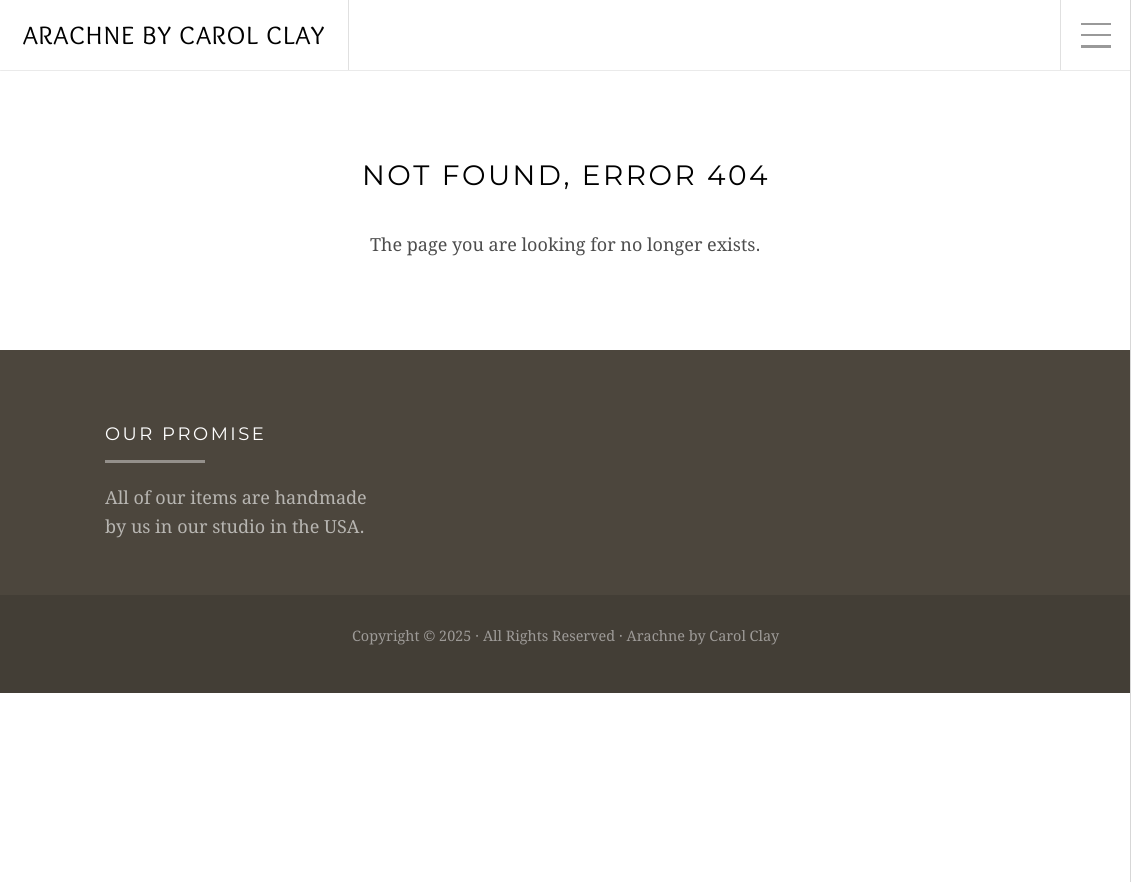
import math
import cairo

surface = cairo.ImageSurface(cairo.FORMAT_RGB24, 1131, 882)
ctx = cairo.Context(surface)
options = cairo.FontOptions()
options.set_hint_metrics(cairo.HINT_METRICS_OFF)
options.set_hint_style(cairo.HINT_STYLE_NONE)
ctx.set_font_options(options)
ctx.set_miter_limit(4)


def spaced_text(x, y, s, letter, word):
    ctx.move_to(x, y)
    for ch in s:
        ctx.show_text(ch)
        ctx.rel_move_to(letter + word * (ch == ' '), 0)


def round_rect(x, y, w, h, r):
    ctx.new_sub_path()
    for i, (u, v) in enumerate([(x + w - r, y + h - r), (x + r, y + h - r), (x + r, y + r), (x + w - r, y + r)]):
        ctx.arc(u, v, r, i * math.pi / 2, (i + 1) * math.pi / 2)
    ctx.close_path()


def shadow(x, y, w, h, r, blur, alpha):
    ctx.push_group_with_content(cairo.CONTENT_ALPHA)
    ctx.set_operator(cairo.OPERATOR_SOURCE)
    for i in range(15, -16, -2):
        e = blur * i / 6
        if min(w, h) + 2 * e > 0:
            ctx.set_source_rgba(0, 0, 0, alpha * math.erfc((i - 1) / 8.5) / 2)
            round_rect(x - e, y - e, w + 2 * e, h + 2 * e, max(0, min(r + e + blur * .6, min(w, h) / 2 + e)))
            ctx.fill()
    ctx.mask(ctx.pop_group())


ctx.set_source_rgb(1, 1, 1)
ctx.paint()
ctx.save()
ctx.rectangle(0, 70, 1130, 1)
ctx.clip()
ctx.set_source_rgb(0, 0, 0)
shadow(0, 0, 1131, 70, 0, 1, 0.24)
ctx.restore()
ctx.set_source_rgb(0.878, 0.878, 0.878)
ctx.rectangle(348, 0, 1, 70)
ctx.fill()
ctx.select_font_face("Overlock")
ctx.set_font_size(26)
ctx.set_source_rgb(0, 0, 0)
spaced_text(23, 44, "ARACHNE BY CAROL CLAY", 1.25, 0)
ctx.set_source_rgb(0.878, 0.878, 0.878)
ctx.rectangle(1060, 0, 1, 70)
ctx.fill()
ctx.set_source_rgb(0.6, 0.6, 0.6)
ctx.rectangle(1081, 23, 30, 2)
ctx.fill()
ctx.rectangle(1081, 34, 30, 2)
ctx.fill()
ctx.rectangle(1081, 45, 30, 3)
ctx.fill()
ctx.select_font_face("Montserrat")
ctx.set_font_size(28)
ctx.set_source_rgb(0, 0, 0)
spaced_text(362, 185, "NOT FOUND, ERROR 404", 2.5, 0)
ctx.select_font_face("Droid Serif")
ctx.set_font_size(18)
ctx.set_source_rgb(0.302, 0.302, 0.302)
ctx.move_to(370, 251)
ctx.show_text("The page you are looking for no longer exists.")
ctx.set_source_rgb(0.298, 0.275, 0.239)
ctx.rectangle(0, 350, 1130, 245)
ctx.fill()
ctx.select_font_face("Montserrat")
ctx.set_source_rgb(1, 1, 1)
spaced_text(105, 440, "OUR PROMISE", 2.5, 0)
ctx.set_source_rgb(0.58, 0.565, 0.545)
ctx.rectangle(105, 460, 100, 3)
ctx.fill()
ctx.select_font_face("Droid Serif")
ctx.set_source_rgb(0.718, 0.71, 0.694)
ctx.move_to(105, 504)
ctx.show_text("All of our items are handmade")
ctx.move_to(105, 533)
ctx.show_text("by us in our studio in the USA.")
ctx.set_source_rgb(0.263, 0.243, 0.212)
ctx.rectangle(0, 595, 1130, 98)
ctx.fill()
ctx.set_font_size(14.4)
ctx.set_source_rgb(0.616, 0.604, 0.592)
ctx.move_to(352, 641)
ctx.show_text("Copyright © 2025 · All Rights Reserved · Arachne by Carol Clay")
ctx.set_source_rgb(0.843, 0.843, 0.843)
ctx.rectangle(1130, 0, 1, 882)
ctx.fill()
surface.write_to_png("page.png")
